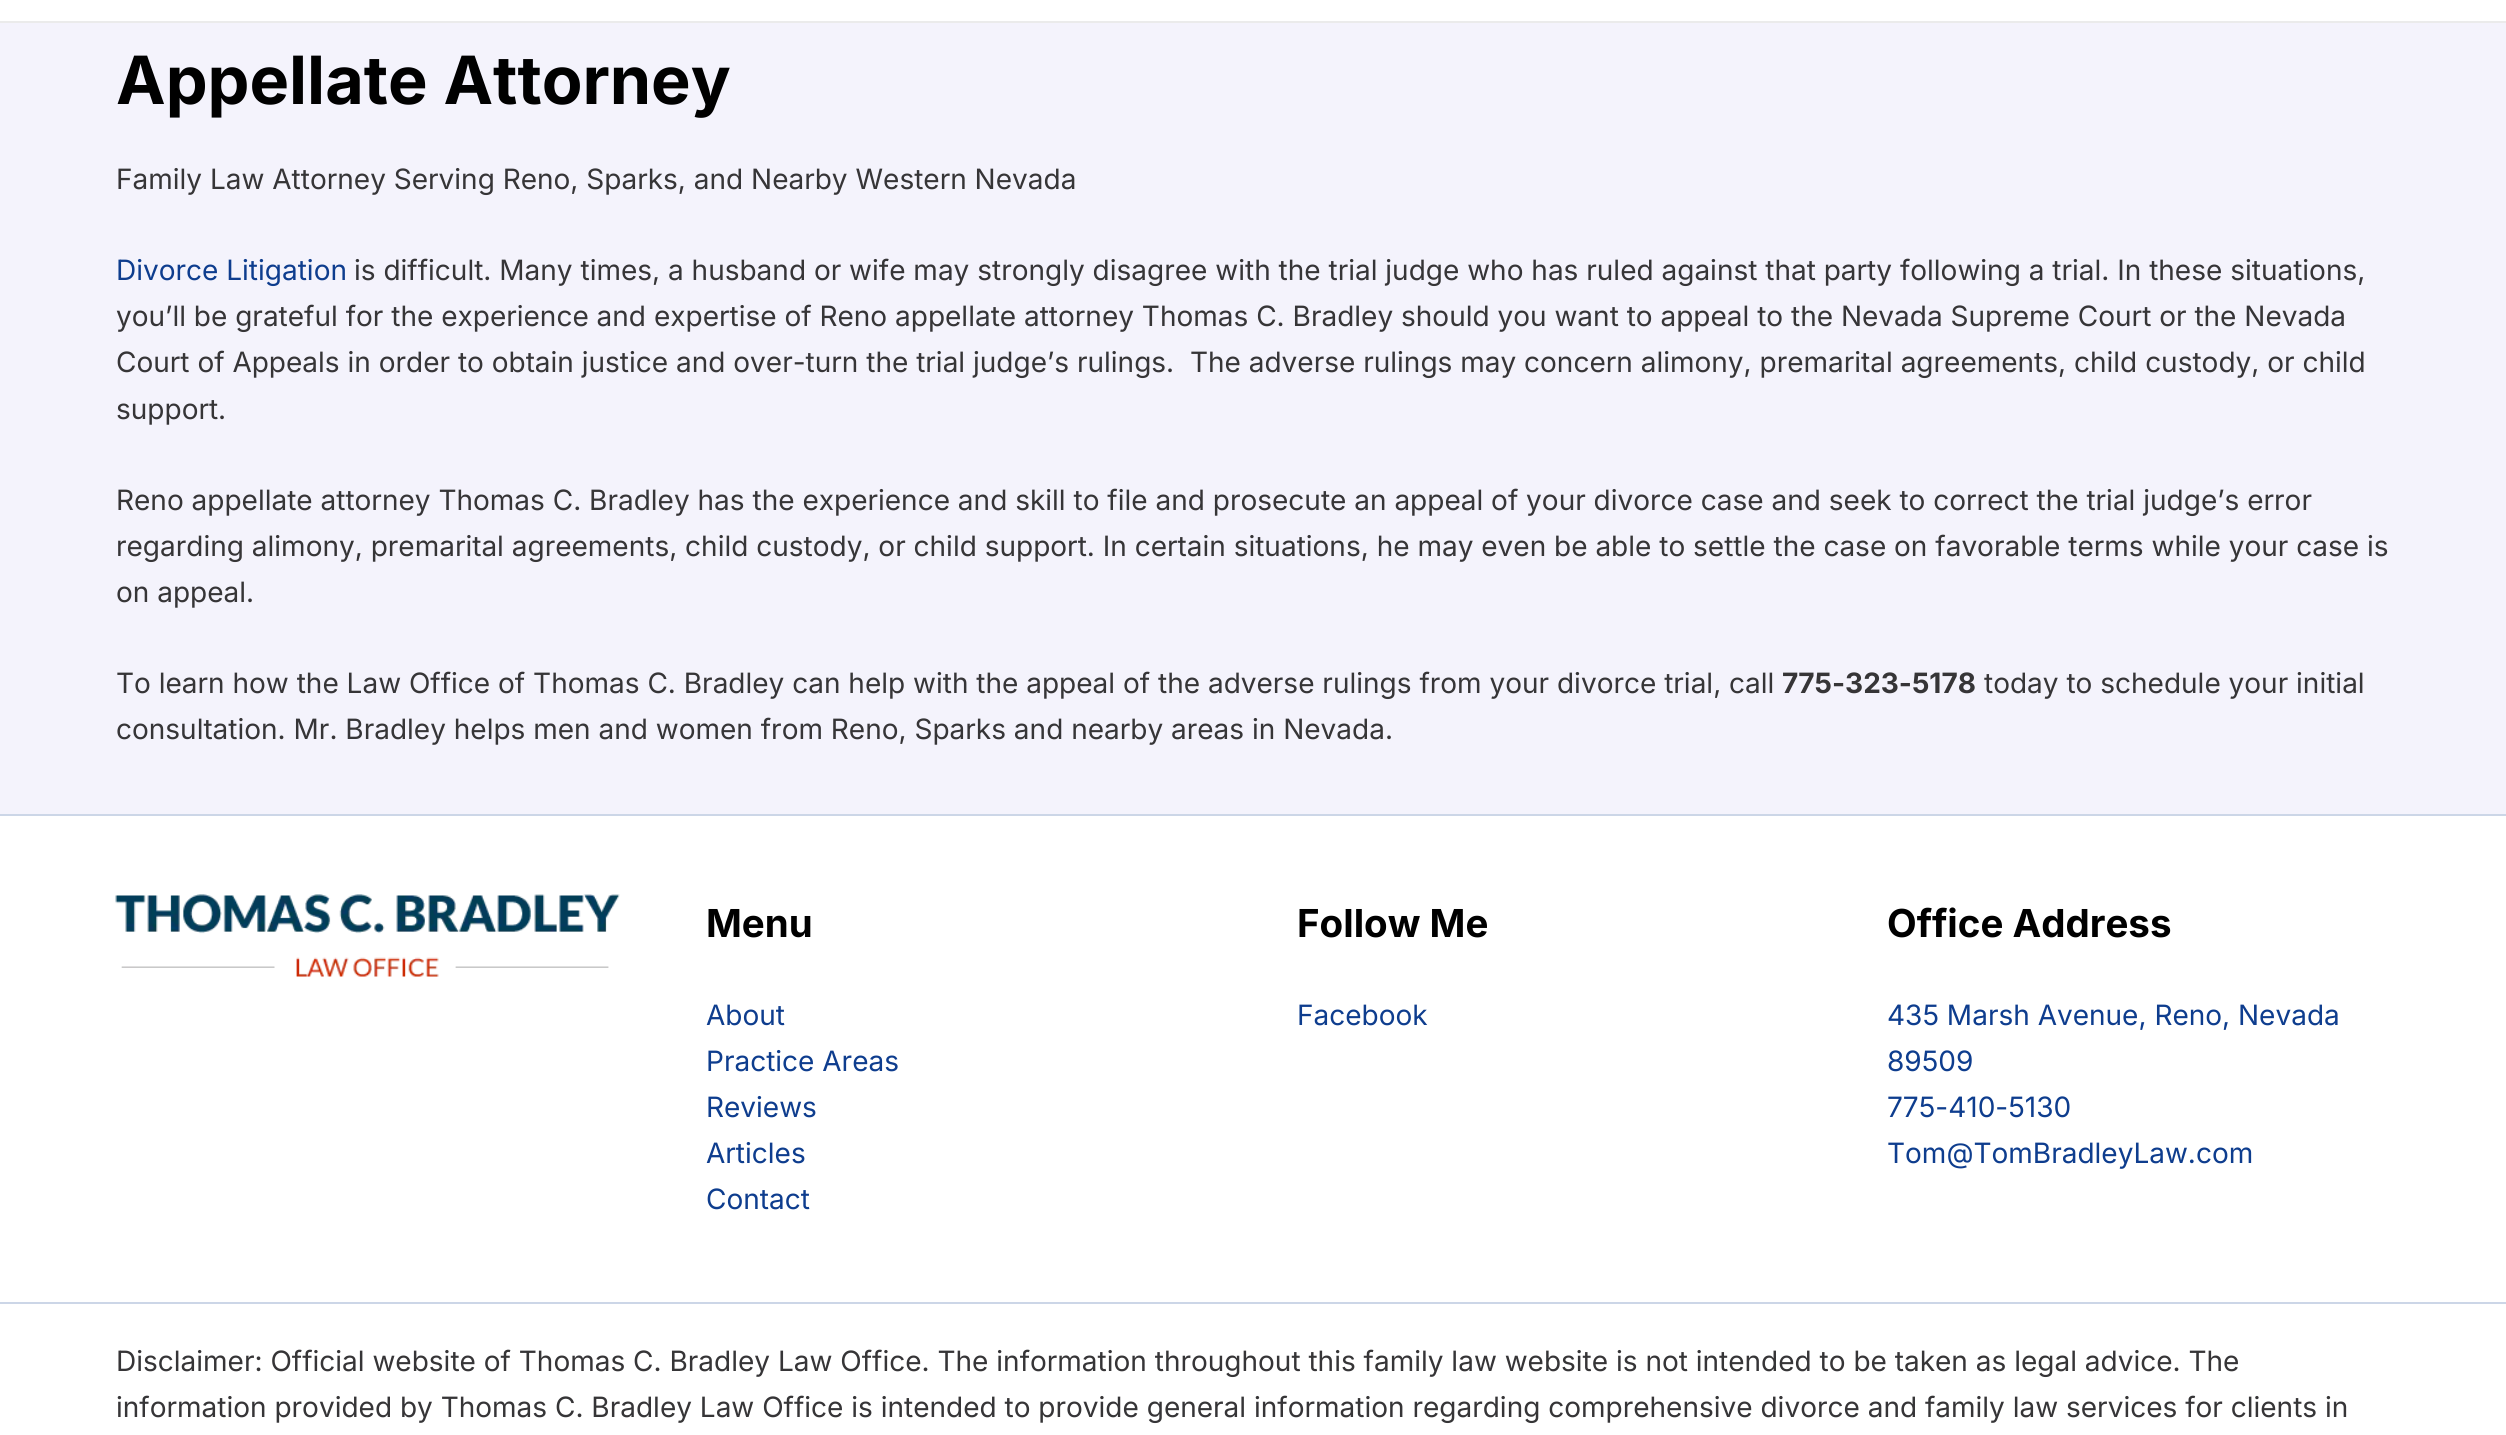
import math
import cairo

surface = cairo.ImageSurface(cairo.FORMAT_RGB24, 2506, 1435)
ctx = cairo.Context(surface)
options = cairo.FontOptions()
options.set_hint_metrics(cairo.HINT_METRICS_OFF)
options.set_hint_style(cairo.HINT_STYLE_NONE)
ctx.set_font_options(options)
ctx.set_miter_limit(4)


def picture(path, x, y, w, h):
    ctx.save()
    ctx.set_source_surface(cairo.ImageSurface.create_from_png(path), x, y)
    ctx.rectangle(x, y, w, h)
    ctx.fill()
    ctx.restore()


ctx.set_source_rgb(0.957, 0.953, 0.988)
ctx.paint()
ctx.set_source_rgb(1, 1, 1)
ctx.rectangle(0, 0, 2506, 21)
ctx.fill()
ctx.set_source_rgb(0.918, 0.918, 0.918)
ctx.rectangle(0, 21, 2506, 2)
ctx.fill()
ctx.select_font_face("Inter", cairo.FONT_SLANT_NORMAL, cairo.FONT_WEIGHT_BOLD)
ctx.set_font_size(66.5)
ctx.set_source_rgb(0, 0, 0)
ctx.move_to(116, 104)
ctx.show_text("Appellate Attorney")
ctx.select_font_face("Inter")
ctx.set_font_size(28)
ctx.set_source_rgb(0.212, 0.208, 0.216)
ctx.move_to(116, 189)
ctx.show_text("Family Law Attorney Serving Reno, Sparks, and Nearby Western Nevada")
ctx.set_source_rgb(0.055, 0.239, 0.557)
ctx.move_to(116, 280)
ctx.show_text("Divorce Litigation")
ctx.set_source_rgb(0.212, 0.208, 0.216)
ctx.move_to(354, 280)
ctx.show_text("is difficult. Many times, a husband or wife may strongly disagree with the trial judge who has ruled against that party following a trial. In these situations,")
ctx.move_to(116, 326)
ctx.show_text("you’ll be grateful for the experience and expertise of Reno appellate attorney Thomas C. Bradley should you want to appeal to the Nevada Supreme Court or the Nevada")
ctx.move_to(116, 372)
ctx.show_text("Court of Appeals in order to obtain justice and over-turn the trial judge’s rulings.  The adverse rulings may concern alimony, premarital agreements, child custody, or child")
ctx.move_to(116, 419)
ctx.show_text("support.")
ctx.move_to(116, 510)
ctx.show_text("Reno appellate attorney Thomas C. Bradley has the experience and skill to file and prosecute an appeal of your divorce case and seek to correct the trial judge’s error")
ctx.move_to(116, 556)
ctx.show_text("regarding alimony, premarital agreements, child custody, or child support. In certain situations, he may even be able to settle the case on favorable terms while your case is")
ctx.move_to(116, 602)
ctx.show_text("on appeal.")
ctx.move_to(116, 693)
ctx.show_text("To learn how the Law Office of Thomas C. Bradley can help with the appeal of the adverse rulings from your divorce trial, call")
ctx.select_font_face("Inter", cairo.FONT_SLANT_NORMAL, cairo.FONT_WEIGHT_BOLD)
ctx.move_to(1782, 693)
ctx.show_text("775-323-5178")
ctx.select_font_face("Inter")
ctx.move_to(1984, 693)
ctx.show_text("today to schedule your initial")
ctx.move_to(116, 739)
ctx.show_text("consultation. Mr. Bradley helps men and women from Reno, Sparks and nearby areas in Nevada.")
ctx.set_source_rgb(1, 1, 1)
ctx.rectangle(0, 816, 2506, 486)
ctx.fill()
ctx.set_source_rgb(0.8, 0.839, 0.906)
ctx.rectangle(0, 814, 2506, 2)
ctx.fill()
picture("img1.png", 115, 894, 505, 83)
ctx.select_font_face("Inter", cairo.FONT_SLANT_NORMAL, cairo.FONT_WEIGHT_BOLD)
ctx.set_font_size(38.5)
ctx.set_source_rgb(0, 0, 0)
ctx.move_to(706, 937)
ctx.show_text("Menu")
ctx.select_font_face("Inter")
ctx.set_font_size(28)
ctx.set_source_rgb(0.055, 0.239, 0.557)
ctx.move_to(706, 1025)
ctx.show_text("About")
ctx.move_to(706, 1071)
ctx.show_text("Practice Areas")
ctx.move_to(706, 1117)
ctx.show_text("Reviews")
ctx.move_to(706, 1163)
ctx.show_text("Articles")
ctx.move_to(706, 1209)
ctx.show_text("Contact")
ctx.select_font_face("Inter", cairo.FONT_SLANT_NORMAL, cairo.FONT_WEIGHT_BOLD)
ctx.set_font_size(38.5)
ctx.set_source_rgb(0, 0, 0)
ctx.move_to(1297, 937)
ctx.show_text("Follow Me")
ctx.select_font_face("Inter")
ctx.set_font_size(28)
ctx.set_source_rgb(0.055, 0.239, 0.557)
ctx.move_to(1297, 1025)
ctx.show_text("Facebook")
ctx.select_font_face("Inter", cairo.FONT_SLANT_NORMAL, cairo.FONT_WEIGHT_BOLD)
ctx.set_font_size(38.5)
ctx.set_source_rgb(0, 0, 0)
ctx.move_to(1887, 937)
ctx.show_text("Office Address")
ctx.select_font_face("Inter")
ctx.set_font_size(28)
ctx.set_source_rgb(0.055, 0.239, 0.557)
ctx.move_to(1887, 1025)
ctx.show_text("435 Marsh Avenue, Reno, Nevada")
ctx.move_to(1887, 1071)
ctx.show_text("89509")
ctx.move_to(1887, 1117)
ctx.show_text("775-410-5130")
ctx.move_to(1887, 1163)
ctx.show_text("Tom@TomBradleyLaw.com")
ctx.set_source_rgb(1, 1, 1)
ctx.rectangle(0, 1304, 2506, 131)
ctx.fill()
ctx.set_source_rgb(0.8, 0.839, 0.906)
ctx.rectangle(0, 1302, 2506, 2)
ctx.fill()
ctx.set_source_rgb(0.212, 0.208, 0.216)
ctx.move_to(116, 1371)
ctx.show_text("Disclaimer: Official website of Thomas C. Bradley Law Office. The information throughout this family law website is not intended to be taken as legal advice. The")
ctx.move_to(116, 1417)
ctx.show_text("information provided by Thomas C. Bradley Law Office is intended to provide general information regarding comprehensive divorce and family law services for clients in")
surface.write_to_png("page.png")
